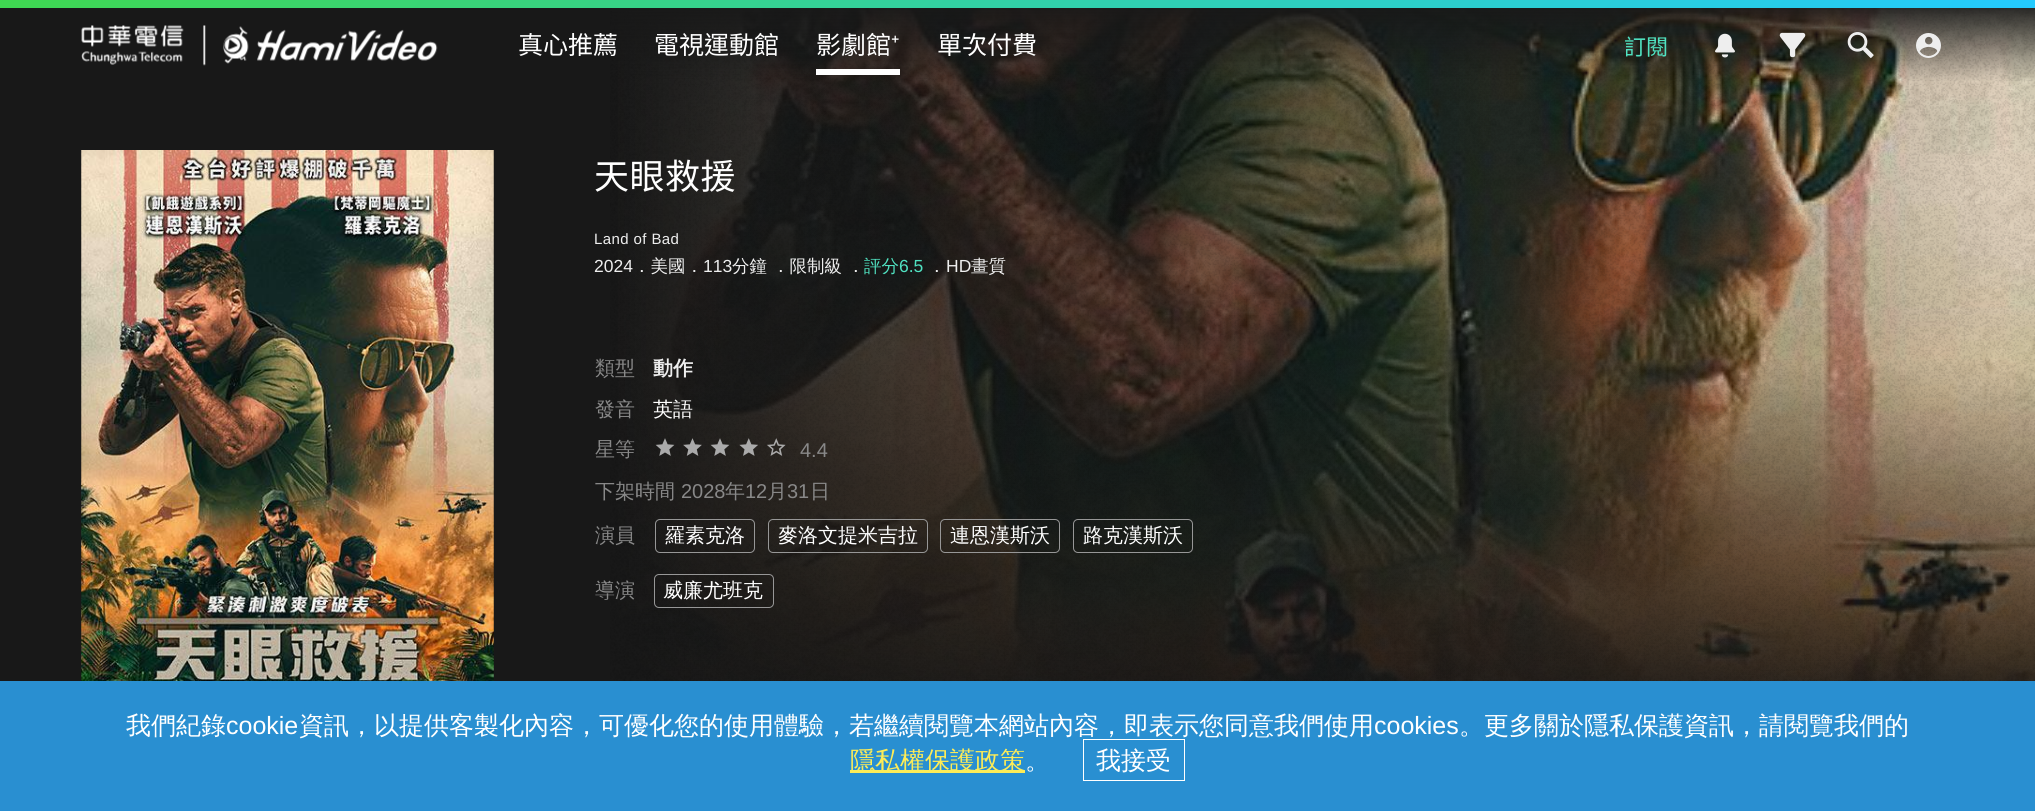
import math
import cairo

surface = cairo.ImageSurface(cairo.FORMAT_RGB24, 2035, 811)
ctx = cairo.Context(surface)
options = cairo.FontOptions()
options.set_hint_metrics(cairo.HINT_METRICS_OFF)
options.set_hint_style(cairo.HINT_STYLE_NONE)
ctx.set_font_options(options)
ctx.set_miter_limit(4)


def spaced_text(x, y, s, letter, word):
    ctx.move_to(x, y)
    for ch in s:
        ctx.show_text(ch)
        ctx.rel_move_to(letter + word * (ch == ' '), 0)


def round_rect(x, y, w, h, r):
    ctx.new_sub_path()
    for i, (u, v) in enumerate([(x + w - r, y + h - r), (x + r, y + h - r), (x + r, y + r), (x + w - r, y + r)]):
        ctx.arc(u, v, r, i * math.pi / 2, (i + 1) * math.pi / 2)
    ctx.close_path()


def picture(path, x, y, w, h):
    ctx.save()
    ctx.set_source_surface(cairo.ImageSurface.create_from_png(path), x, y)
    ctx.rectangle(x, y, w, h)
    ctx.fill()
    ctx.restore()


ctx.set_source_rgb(0.094, 0.094, 0.094)
ctx.paint()
picture("img7.png", 618, 8, 1417, 673)
picture("img6.png", 610, 8, 1425, 673)
gradient = cairo.LinearGradient(1018, 0, 1018, 83)
gradient.add_color_stop_rgba(0, 0.094, 0.094, 0.094, 1)
gradient.add_color_stop_rgba(1, 0.094, 0.094, 0.094, 0)
ctx.set_source(gradient)
ctx.rectangle(612, 8, 1423, 73)
ctx.fill()
gradient = cairo.LinearGradient(502, -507, 1533, 514)
gradient.add_color_stop_rgba(0, 0.247, 0.843, 0.314, 1)
gradient.add_color_stop_rgba(1, 0.141, 0.796, 1, 1)
ctx.set_source(gradient)
ctx.rectangle(0, 0, 2035, 8)
ctx.fill()
picture("img1.png", 81, 25, 357, 41)
ctx.select_font_face("Noto Sans TC Thin")
ctx.set_font_size(25)
ctx.set_source_rgb(1, 1, 1)
ctx.move_to(518, 54)
ctx.show_text("真心推薦")
ctx.move_to(654, 54)
ctx.show_text("電視運動館")
ctx.rectangle(816, 69, 84, 6)
ctx.fill()
ctx.move_to(816, 54)
ctx.show_text("影劇館")
ctx.select_font_face("Noto Sans")
ctx.move_to(891, 54)
ctx.show_text("⁺")
ctx.select_font_face("Noto Sans TC Thin")
ctx.move_to(937, 54)
ctx.show_text("單次付費")
ctx.set_font_size(22)
ctx.set_source_rgb(0.314, 0.89, 0.761)
ctx.move_to(1624, 55)
ctx.show_text("訂閱")
picture("img2.png", 1715, 33, 20, 25)
picture("img3.png", 1779, 32, 27, 26)
picture("img4.png", 1847, 32, 27, 26)
picture("img5.png", 1916, 33, 25, 25)
picture("img8.png", 81, 150, 413, 531)
ctx.set_font_size(35)
ctx.set_source_rgb(1, 1, 1)
spaced_text(594, 189, "天眼救援", 0.5, 0)
ctx.select_font_face("Liberation Sans")
ctx.set_font_size(15)
ctx.set_source_rgb(0.933, 0.933, 0.933)
spaced_text(594, 244, "Land of Bad", 0.4, 0)
ctx.set_font_size(17.5)
ctx.move_to(594, 272)
ctx.show_text("2024")
ctx.select_font_face("WenQuanYi Zen Hei Medium")
ctx.move_to(633, 272)
ctx.show_text("．美國．")
ctx.select_font_face("Liberation Sans")
ctx.move_to(703, 272)
ctx.show_text("113")
ctx.select_font_face("WenQuanYi Zen Hei Medium")
ctx.move_to(732, 272)
ctx.show_text("分鐘")
ctx.move_to(772, 272)
ctx.show_text("．限制級")
ctx.move_to(847, 272)
ctx.show_text("．")
ctx.set_source_rgb(0.314, 0.89, 0.761)
ctx.move_to(864, 272)
ctx.show_text("評分")
ctx.select_font_face("Liberation Sans")
ctx.move_to(899, 272)
ctx.show_text("6.5")
ctx.select_font_face("WenQuanYi Zen Hei Medium")
ctx.set_source_rgb(0.933, 0.933, 0.933)
ctx.move_to(928, 272)
ctx.show_text("．")
ctx.select_font_face("Liberation Sans")
ctx.move_to(946, 272)
ctx.show_text("HD")
ctx.select_font_face("WenQuanYi Zen Hei Medium")
ctx.move_to(971, 272)
ctx.show_text("畫質")
ctx.set_font_size(20)
ctx.set_source_rgb(0.533, 0.533, 0.533)
ctx.move_to(595, 375)
ctx.show_text("類型")
ctx.select_font_face("WenQuanYi Zen Hei", cairo.FONT_SLANT_NORMAL, cairo.FONT_WEIGHT_BOLD)
ctx.set_source_rgb(0.933, 0.933, 0.933)
ctx.move_to(653, 375)
ctx.show_text("動作")
ctx.select_font_face("WenQuanYi Zen Hei Medium")
ctx.set_source_rgb(0.533, 0.533, 0.533)
ctx.move_to(595, 416)
ctx.show_text("發音")
ctx.set_source_rgb(1, 1, 1)
ctx.move_to(653, 416)
ctx.show_text("英語")
ctx.set_source_rgb(0.533, 0.533, 0.533)
ctx.move_to(595, 456)
ctx.show_text("星等")
picture("img9.png", 655, 438, 20, 18)
picture("img10.png", 683, 438, 19, 18)
picture("img11.png", 710, 438, 20, 18)
picture("img12.png", 739, 438, 19, 18)
picture("img13.png", 767, 438, 19, 18)
ctx.select_font_face("Liberation Sans")
ctx.move_to(800, 457)
ctx.show_text("4.4")
ctx.select_font_face("WenQuanYi Zen Hei Medium")
ctx.move_to(595, 498)
ctx.show_text("下架時間")
ctx.select_font_face("Liberation Sans")
ctx.move_to(681, 498)
ctx.show_text("2028")
ctx.select_font_face("WenQuanYi Zen Hei Medium")
ctx.move_to(725, 498)
ctx.show_text("年")
ctx.select_font_face("Liberation Sans")
ctx.move_to(745, 498)
ctx.show_text("12")
ctx.select_font_face("WenQuanYi Zen Hei Medium")
ctx.move_to(767, 498)
ctx.show_text("月")
ctx.select_font_face("Liberation Sans")
ctx.move_to(787, 498)
ctx.show_text("31")
ctx.select_font_face("WenQuanYi Zen Hei Medium")
ctx.move_to(810, 498)
ctx.show_text("日")
ctx.move_to(595, 542)
ctx.show_text("演員")
round_rect(655.5, 519.5, 99, 33, 4.5)
ctx.set_source_rgb(0.592, 0.592, 0.592)
ctx.set_line_width(1)
ctx.stroke()
ctx.set_source_rgb(1, 1, 1)
ctx.move_to(665, 542)
ctx.show_text("羅素克洛")
round_rect(768.5, 519.5, 159, 33, 4.5)
ctx.set_source_rgb(0.592, 0.592, 0.592)
ctx.stroke()
ctx.set_source_rgb(1, 1, 1)
ctx.move_to(778, 542)
ctx.show_text("麥洛文提米吉拉")
round_rect(940.5, 519.5, 119, 33, 4.5)
ctx.set_source_rgb(0.592, 0.592, 0.592)
ctx.stroke()
ctx.set_source_rgb(1, 1, 1)
ctx.move_to(950, 542)
ctx.show_text("連恩漢斯沃")
round_rect(1073.5, 519.5, 119, 33, 4.5)
ctx.set_source_rgb(0.592, 0.592, 0.592)
ctx.stroke()
ctx.set_source_rgb(1, 1, 1)
ctx.move_to(1083, 542)
ctx.show_text("路克漢斯沃")
ctx.set_source_rgb(0.533, 0.533, 0.533)
ctx.move_to(595, 597)
ctx.show_text("導演")
round_rect(654.5, 574.5, 119, 33, 4.5)
ctx.set_source_rgb(0.592, 0.592, 0.592)
ctx.stroke()
ctx.set_source_rgb(1, 1, 1)
ctx.move_to(663, 597)
ctx.show_text("威廉尤班克")
ctx.set_source_rgb(0.161, 0.561, 0.82)
ctx.rectangle(0, 681, 2035, 130)
ctx.fill()
ctx.set_font_size(25)
ctx.set_source_rgb(1, 1, 1)
ctx.move_to(126, 734)
ctx.show_text("我們紀錄")
ctx.select_font_face("Liberation Sans")
ctx.move_to(226, 734)
ctx.show_text("cookie")
ctx.select_font_face("WenQuanYi Zen Hei Medium")
ctx.move_to(299, 734)
ctx.show_text("資訊，以提供客製化內容，可優化您的使用體驗，若繼續閱覽本網站內容，即表示您同意我們使用")
ctx.select_font_face("Liberation Sans")
ctx.move_to(1374, 734)
ctx.show_text("cookies")
ctx.select_font_face("WenQuanYi Zen Hei Medium")
ctx.move_to(1459, 734)
ctx.show_text("。更多關於隱私保護資訊，請閱覽我們的")
ctx.set_source_rgb(0.992, 0.925, 0.341)
ctx.rectangle(850, 770, 175, 3)
ctx.fill()
ctx.move_to(850, 769)
ctx.show_text("隱私權保護政策")
ctx.set_source_rgb(1, 1, 1)
ctx.move_to(1025, 769)
ctx.show_text("。")
ctx.rectangle(1083.5, 739.5, 101, 41)
ctx.stroke()
ctx.move_to(1096, 769)
ctx.show_text("我接受")
surface.write_to_png("page.png")
